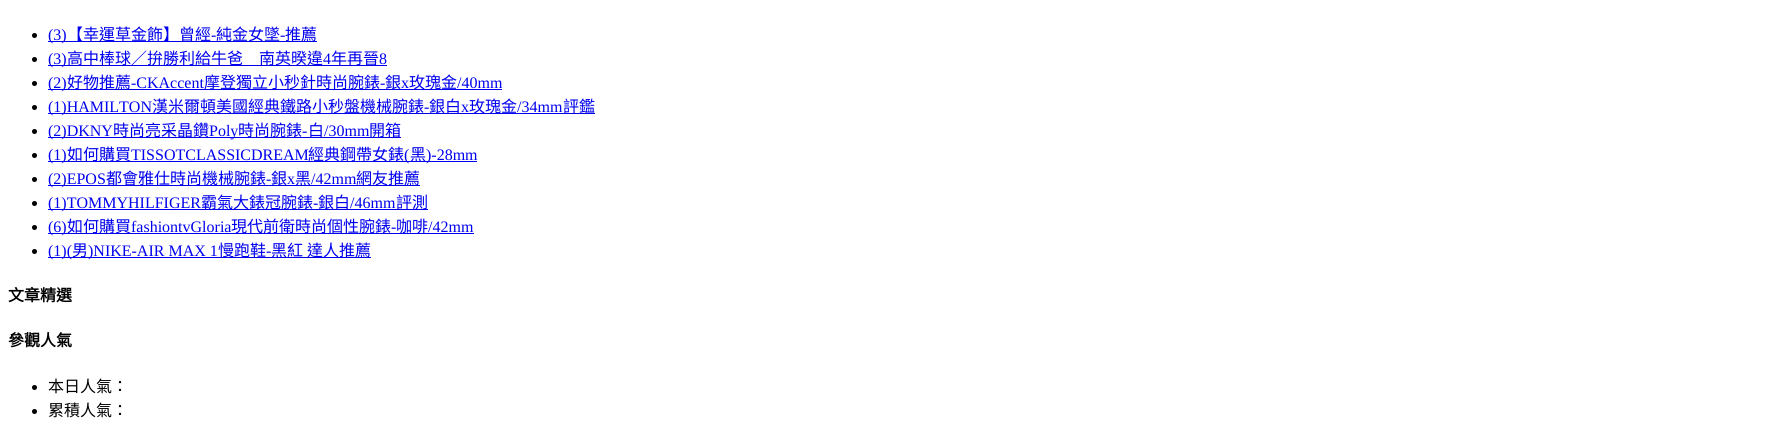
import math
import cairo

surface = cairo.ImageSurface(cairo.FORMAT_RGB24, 1787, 437)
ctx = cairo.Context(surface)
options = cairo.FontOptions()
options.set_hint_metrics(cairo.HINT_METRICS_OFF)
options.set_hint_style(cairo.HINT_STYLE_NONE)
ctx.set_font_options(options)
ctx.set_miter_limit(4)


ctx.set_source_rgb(1, 1, 1)
ctx.paint()
ctx.set_source_rgb(0, 0, 0)
ctx.arc(34.5, 35.5, 2.5, 0, 2 * math.pi)
ctx.fill()
ctx.set_source_rgb(0, 0, 0.933)
ctx.rectangle(48, 41, 269, 1)
ctx.fill()
ctx.select_font_face("Liberation Serif")
ctx.set_font_size(16)
ctx.move_to(48, 40)
ctx.show_text("(3)")
ctx.select_font_face("Noto Sans CJK TC")
ctx.move_to(67, 40)
ctx.show_text("【幸運草金飾】曾經")
ctx.select_font_face("Liberation Serif")
ctx.move_to(211, 40)
ctx.show_text("-")
ctx.select_font_face("Noto Sans CJK TC")
ctx.move_to(216, 40)
ctx.show_text("純金女墜")
ctx.select_font_face("Liberation Serif")
ctx.move_to(280, 40)
ctx.show_text("-")
ctx.select_font_face("Noto Sans CJK TC")
ctx.move_to(285, 40)
ctx.show_text("推薦")
ctx.set_source_rgb(0, 0, 0)
ctx.new_path()
ctx.arc(34.5, 59.5, 2.5, 0, 2 * math.pi)
ctx.fill()
ctx.set_source_rgb(0, 0, 0.933)
ctx.rectangle(48, 65, 339, 1)
ctx.fill()
ctx.select_font_face("Liberation Serif")
ctx.move_to(48, 64)
ctx.show_text("(3)")
ctx.select_font_face("Noto Sans CJK TC")
ctx.move_to(67, 64)
ctx.show_text("高中棒球／拚勝利給牛爸　南英暌違")
ctx.select_font_face("Liberation Serif")
ctx.move_to(323, 64)
ctx.show_text("4")
ctx.select_font_face("Noto Sans CJK TC")
ctx.move_to(331, 64)
ctx.show_text("年再晉")
ctx.select_font_face("Liberation Serif")
ctx.move_to(379, 64)
ctx.show_text("8")
ctx.set_source_rgb(0, 0, 0)
ctx.new_path()
ctx.arc(34.5, 83.5, 2.5, 0, 2 * math.pi)
ctx.fill()
ctx.set_source_rgb(0, 0, 0.933)
ctx.rectangle(48, 89, 454, 1)
ctx.fill()
ctx.move_to(48, 88)
ctx.show_text("(2)")
ctx.select_font_face("Noto Sans CJK TC")
ctx.move_to(67, 88)
ctx.show_text("好物推薦")
ctx.select_font_face("Liberation Serif")
ctx.move_to(131, 88)
ctx.show_text("-CKAccent")
ctx.select_font_face("Noto Sans CJK TC")
ctx.move_to(204, 88)
ctx.show_text("摩登獨立小秒針時尚腕錶")
ctx.select_font_face("Liberation Serif")
ctx.move_to(380, 88)
ctx.show_text("-")
ctx.select_font_face("Noto Sans CJK TC")
ctx.move_to(385, 88)
ctx.show_text("銀")
ctx.select_font_face("Liberation Serif")
ctx.move_to(401, 88)
ctx.show_text("x")
ctx.select_font_face("Noto Sans CJK TC")
ctx.move_to(409, 88)
ctx.show_text("玫瑰金")
ctx.select_font_face("Liberation Serif")
ctx.move_to(457, 88)
ctx.show_text("/40mm")
ctx.set_source_rgb(0, 0, 0)
ctx.new_path()
ctx.arc(34.5, 107.5, 2.5, 0, 2 * math.pi)
ctx.fill()
ctx.set_source_rgb(0, 0, 0.933)
ctx.rectangle(48, 113, 547, 1)
ctx.fill()
ctx.move_to(48, 112)
ctx.show_text("(1)HAMILTON")
ctx.select_font_face("Noto Sans CJK TC")
ctx.move_to(152, 112)
ctx.show_text("漢米爾頓美國經典鐵路小秒盤機械腕錶")
ctx.select_font_face("Liberation Serif")
ctx.move_to(424, 112)
ctx.show_text("-")
ctx.select_font_face("Noto Sans CJK TC")
ctx.move_to(429, 112)
ctx.show_text("銀白")
ctx.select_font_face("Liberation Serif")
ctx.move_to(461, 112)
ctx.show_text("x")
ctx.select_font_face("Noto Sans CJK TC")
ctx.move_to(469, 112)
ctx.show_text("玫瑰金")
ctx.select_font_face("Liberation Serif")
ctx.move_to(517, 112)
ctx.show_text("/34mm")
ctx.select_font_face("Noto Sans CJK TC")
ctx.move_to(563, 112)
ctx.show_text("評鑑")
ctx.set_source_rgb(0, 0, 0)
ctx.new_path()
ctx.arc(34.5, 131.5, 2.5, 0, 2 * math.pi)
ctx.fill()
ctx.set_source_rgb(0, 0, 0.933)
ctx.rectangle(48, 137, 353, 1)
ctx.fill()
ctx.select_font_face("Liberation Serif")
ctx.move_to(48, 136)
ctx.show_text("(2)DKNY")
ctx.select_font_face("Noto Sans CJK TC")
ctx.move_to(113, 136)
ctx.show_text("時尚亮采晶鑽")
ctx.select_font_face("Liberation Serif")
ctx.move_to(209, 136)
ctx.show_text("Poly")
ctx.select_font_face("Noto Sans CJK TC")
ctx.move_to(238, 136)
ctx.show_text("時尚腕錶")
ctx.select_font_face("Liberation Serif")
ctx.move_to(302, 136)
ctx.show_text("-")
ctx.select_font_face("Noto Sans CJK TC")
ctx.move_to(308, 136)
ctx.show_text("白")
ctx.select_font_face("Liberation Serif")
ctx.move_to(324, 136)
ctx.show_text("/30mm")
ctx.select_font_face("Noto Sans CJK TC")
ctx.move_to(369, 136)
ctx.show_text("開箱")
ctx.set_source_rgb(0, 0, 0)
ctx.new_path()
ctx.arc(34.5, 155.5, 2.5, 0, 2 * math.pi)
ctx.fill()
ctx.set_source_rgb(0, 0, 0.933)
ctx.rectangle(48, 161, 429, 1)
ctx.fill()
ctx.select_font_face("Liberation Serif")
ctx.move_to(48, 160)
ctx.show_text("(1)")
ctx.select_font_face("Noto Sans CJK TC")
ctx.move_to(67, 160)
ctx.show_text("如何購買")
ctx.select_font_face("Liberation Serif")
ctx.move_to(131, 160)
ctx.show_text("TISSOTCLASSICDREAM")
ctx.select_font_face("Noto Sans CJK TC")
ctx.move_to(308, 160)
ctx.show_text("經典鋼帶女錶")
ctx.select_font_face("Liberation Serif")
ctx.move_to(404, 160)
ctx.show_text("(")
ctx.select_font_face("Noto Sans CJK TC")
ctx.move_to(410, 160)
ctx.show_text("黑")
ctx.select_font_face("Liberation Serif")
ctx.move_to(426, 160)
ctx.show_text(")-28mm")
ctx.set_source_rgb(0, 0, 0)
ctx.new_path()
ctx.arc(34.5, 179.5, 2.5, 0, 2 * math.pi)
ctx.fill()
ctx.set_source_rgb(0, 0, 0.933)
ctx.rectangle(48, 185, 372, 1)
ctx.fill()
ctx.move_to(48, 184)
ctx.show_text("(2)EPOS")
ctx.select_font_face("Noto Sans CJK TC")
ctx.move_to(106, 184)
ctx.show_text("都會雅仕時尚機械腕錶")
ctx.select_font_face("Liberation Serif")
ctx.move_to(266, 184)
ctx.show_text("-")
ctx.select_font_face("Noto Sans CJK TC")
ctx.move_to(271, 184)
ctx.show_text("銀")
ctx.select_font_face("Liberation Serif")
ctx.move_to(287, 184)
ctx.show_text("x")
ctx.select_font_face("Noto Sans CJK TC")
ctx.move_to(295, 184)
ctx.show_text("黑")
ctx.select_font_face("Liberation Serif")
ctx.move_to(311, 184)
ctx.show_text("/42mm")
ctx.select_font_face("Noto Sans CJK TC")
ctx.move_to(356, 184)
ctx.show_text("網友推薦")
ctx.set_source_rgb(0, 0, 0)
ctx.new_path()
ctx.arc(34.5, 203.5, 2.5, 0, 2 * math.pi)
ctx.fill()
ctx.set_source_rgb(0, 0, 0.933)
ctx.rectangle(48, 209, 380, 1)
ctx.fill()
ctx.select_font_face("Liberation Serif")
ctx.move_to(48, 208)
ctx.show_text("(1)TOMMYHILFIGER")
ctx.select_font_face("Noto Sans CJK TC")
ctx.move_to(201, 208)
ctx.show_text("霸氣大錶冠腕錶")
ctx.select_font_face("Liberation Serif")
ctx.move_to(313, 208)
ctx.show_text("-")
ctx.select_font_face("Noto Sans CJK TC")
ctx.move_to(318, 208)
ctx.show_text("銀白")
ctx.select_font_face("Liberation Serif")
ctx.move_to(350, 208)
ctx.show_text("/46mm")
ctx.select_font_face("Noto Sans CJK TC")
ctx.move_to(396, 208)
ctx.show_text("評測")
ctx.set_source_rgb(0, 0, 0)
ctx.new_path()
ctx.arc(34.5, 227.5, 2.5, 0, 2 * math.pi)
ctx.fill()
ctx.set_source_rgb(0, 0, 0.933)
ctx.rectangle(48, 233, 426, 1)
ctx.fill()
ctx.select_font_face("Liberation Serif")
ctx.move_to(48, 232)
ctx.show_text("(6)")
ctx.select_font_face("Noto Sans CJK TC")
ctx.move_to(67, 232)
ctx.show_text("如何購買")
ctx.select_font_face("Liberation Serif")
ctx.move_to(131, 232)
ctx.show_text("fashiontvGloria")
ctx.select_font_face("Noto Sans CJK TC")
ctx.move_to(231, 232)
ctx.show_text("現代前衛時尚個性腕錶")
ctx.select_font_face("Liberation Serif")
ctx.move_to(391, 232)
ctx.show_text("-")
ctx.select_font_face("Noto Sans CJK TC")
ctx.move_to(396, 232)
ctx.show_text("咖啡")
ctx.select_font_face("Liberation Serif")
ctx.move_to(428, 232)
ctx.show_text("/42mm")
ctx.set_source_rgb(0, 0, 0)
ctx.new_path()
ctx.arc(34.5, 251.5, 2.5, 0, 2 * math.pi)
ctx.fill()
ctx.set_source_rgb(0, 0, 0.933)
ctx.rectangle(48, 257, 323, 1)
ctx.fill()
ctx.move_to(48, 256)
ctx.show_text("(1)(")
ctx.select_font_face("Noto Sans CJK TC")
ctx.move_to(72, 256)
ctx.show_text("男")
ctx.select_font_face("Liberation Serif")
ctx.move_to(88, 256)
ctx.show_text(")NIKE-AIR MAX 1")
ctx.select_font_face("Noto Sans CJK TC")
ctx.move_to(218, 256)
ctx.show_text("慢跑鞋")
ctx.select_font_face("Liberation Serif")
ctx.move_to(266, 256)
ctx.show_text("-")
ctx.select_font_face("Noto Sans CJK TC")
ctx.move_to(271, 256)
ctx.show_text("黑紅")
ctx.move_to(307, 256)
ctx.show_text("達人推薦")
ctx.select_font_face("Noto Sans CJK TC", cairo.FONT_SLANT_NORMAL, cairo.FONT_WEIGHT_BOLD)
ctx.set_source_rgb(0, 0, 0)
ctx.move_to(8, 301)
ctx.show_text("文章精選")
ctx.move_to(8, 346)
ctx.show_text("參觀人氣")
ctx.new_path()
ctx.arc(34.5, 387.5, 2.5, 0, 2 * math.pi)
ctx.fill()
ctx.select_font_face("Noto Sans CJK TC")
ctx.move_to(48, 392)
ctx.show_text("本日人氣：")
ctx.new_path()
ctx.arc(34.5, 411.5, 2.5, 0, 2 * math.pi)
ctx.fill()
ctx.move_to(48, 416)
ctx.show_text("累積人氣：")
surface.write_to_png("page.png")
